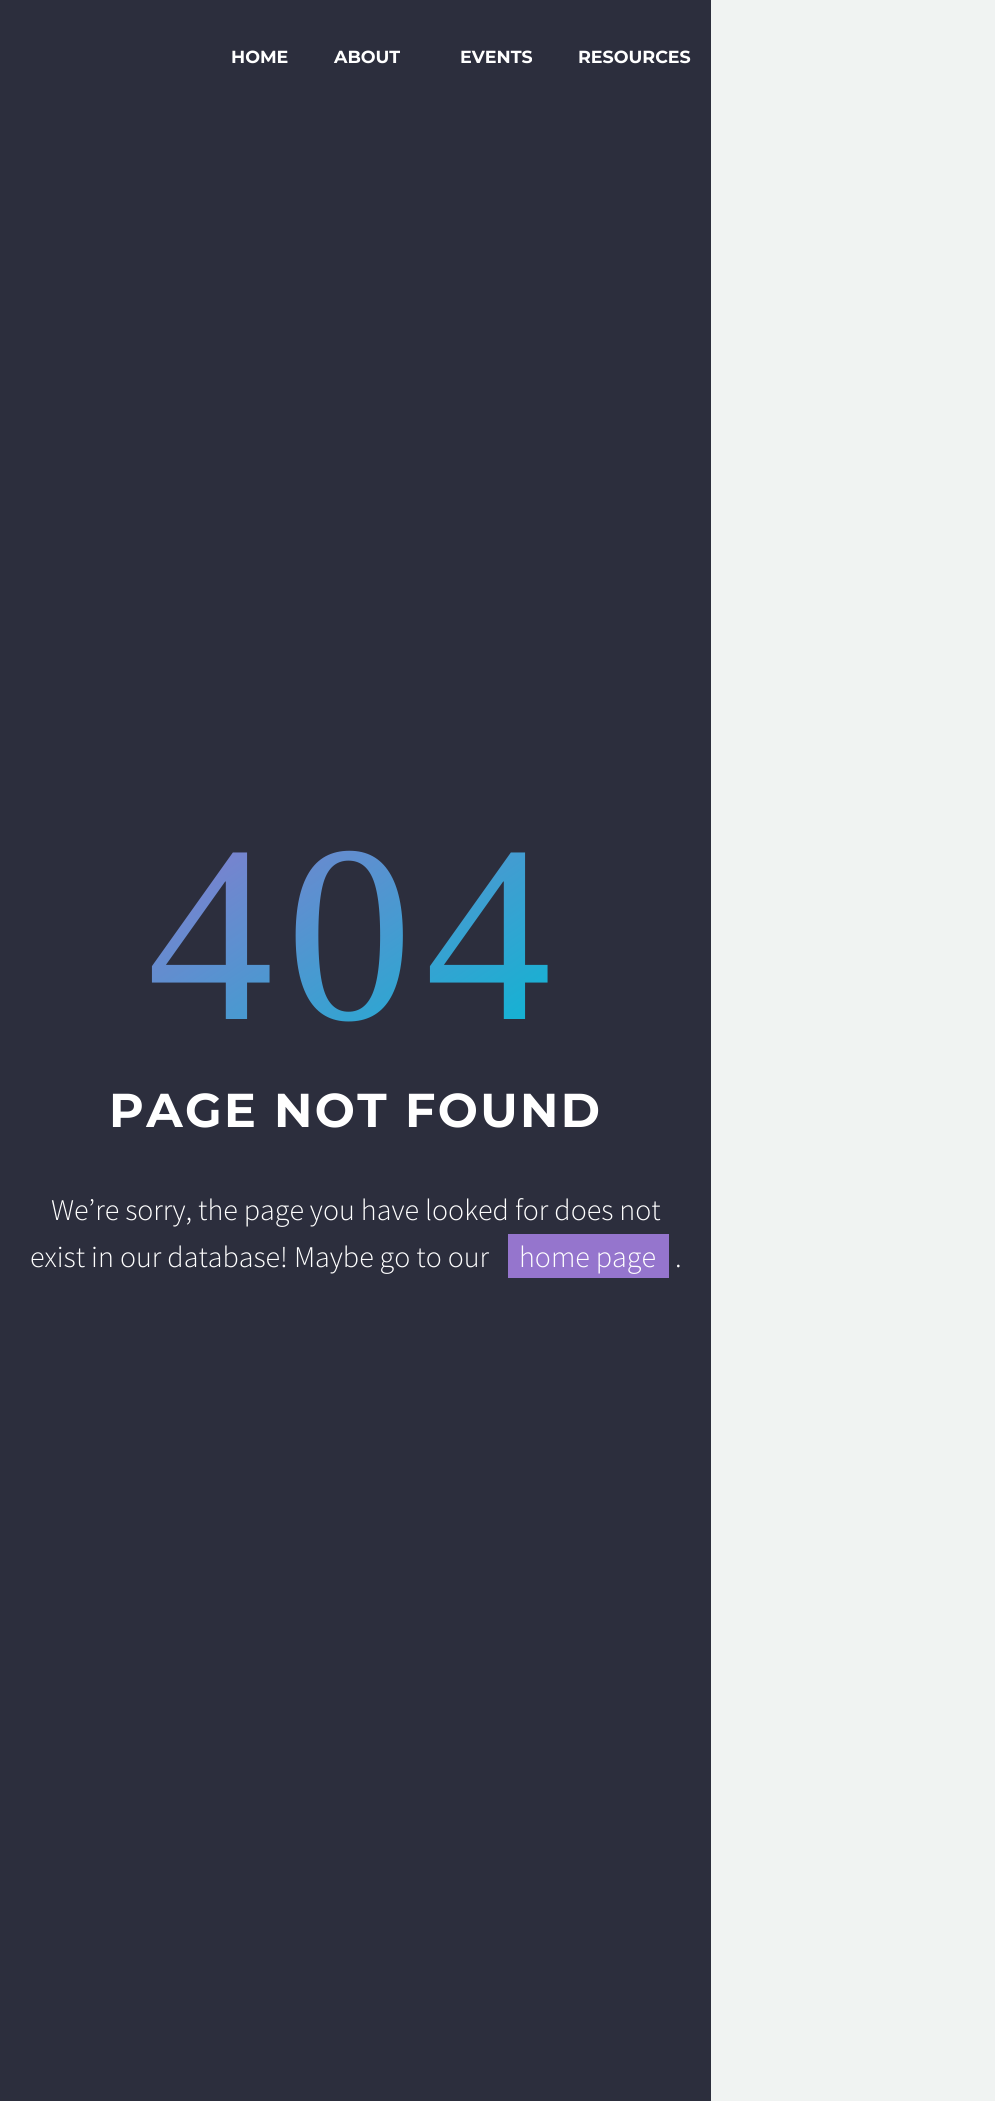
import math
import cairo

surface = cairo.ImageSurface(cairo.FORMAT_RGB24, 995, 2101)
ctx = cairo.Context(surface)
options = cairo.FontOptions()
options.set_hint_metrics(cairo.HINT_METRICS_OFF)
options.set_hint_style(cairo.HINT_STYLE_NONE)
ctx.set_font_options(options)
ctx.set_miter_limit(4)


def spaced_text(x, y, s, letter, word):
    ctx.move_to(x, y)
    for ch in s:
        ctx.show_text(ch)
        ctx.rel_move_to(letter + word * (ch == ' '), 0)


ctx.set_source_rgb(0.941, 0.953, 0.949)
ctx.paint()
ctx.set_source_rgb(0.173, 0.18, 0.239)
ctx.rectangle(0, 0, 711, 2101)
ctx.fill()
ctx.select_font_face("Montserrat", cairo.FONT_SLANT_NORMAL, cairo.FONT_WEIGHT_BOLD)
ctx.set_font_size(17.5)
ctx.set_source_rgb(1, 1, 1)
ctx.move_to(231, 63)
ctx.show_text("HOME")
ctx.move_to(334, 63)
ctx.show_text("ABOUT")
ctx.move_to(460, 63)
ctx.show_text("EVENTS")
ctx.move_to(578, 63)
ctx.show_text("RESOURCES")
ctx.select_font_face("Liberation Serif")
ctx.set_font_size(253)
gradient = cairo.LinearGradient(147, 794, 407, 1180)
gradient.add_color_stop_rgba(0, 0.584, 0.459, 0.804, 1)
gradient.add_color_stop_rgba(1, 0, 0.737, 0.831, 1)
ctx.set_source(gradient)
spaced_text(147, 1019, "404", 12.5, 0)
ctx.select_font_face("Montserrat", cairo.FONT_SLANT_NORMAL, cairo.FONT_WEIGHT_BOLD)
ctx.set_font_size(47.5)
ctx.set_source_rgb(1, 1, 1)
spaced_text(109, 1127, "PAGE NOT FOUND", 2.4, 0)
ctx.select_font_face("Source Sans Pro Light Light")
ctx.set_font_size(30)
ctx.move_to(51, 1220)
ctx.show_text("We’re sorry, the page you have looked for does not")
ctx.move_to(30, 1267)
ctx.show_text("exist in our database! Maybe go to our")
ctx.set_source_rgb(0.584, 0.459, 0.804)
ctx.rectangle(508, 1234, 161, 44)
ctx.fill()
ctx.set_source_rgb(1, 1, 1)
ctx.move_to(519, 1267)
ctx.show_text("home page")
ctx.move_to(675, 1267)
ctx.show_text(".")
surface.write_to_png("page.png")
